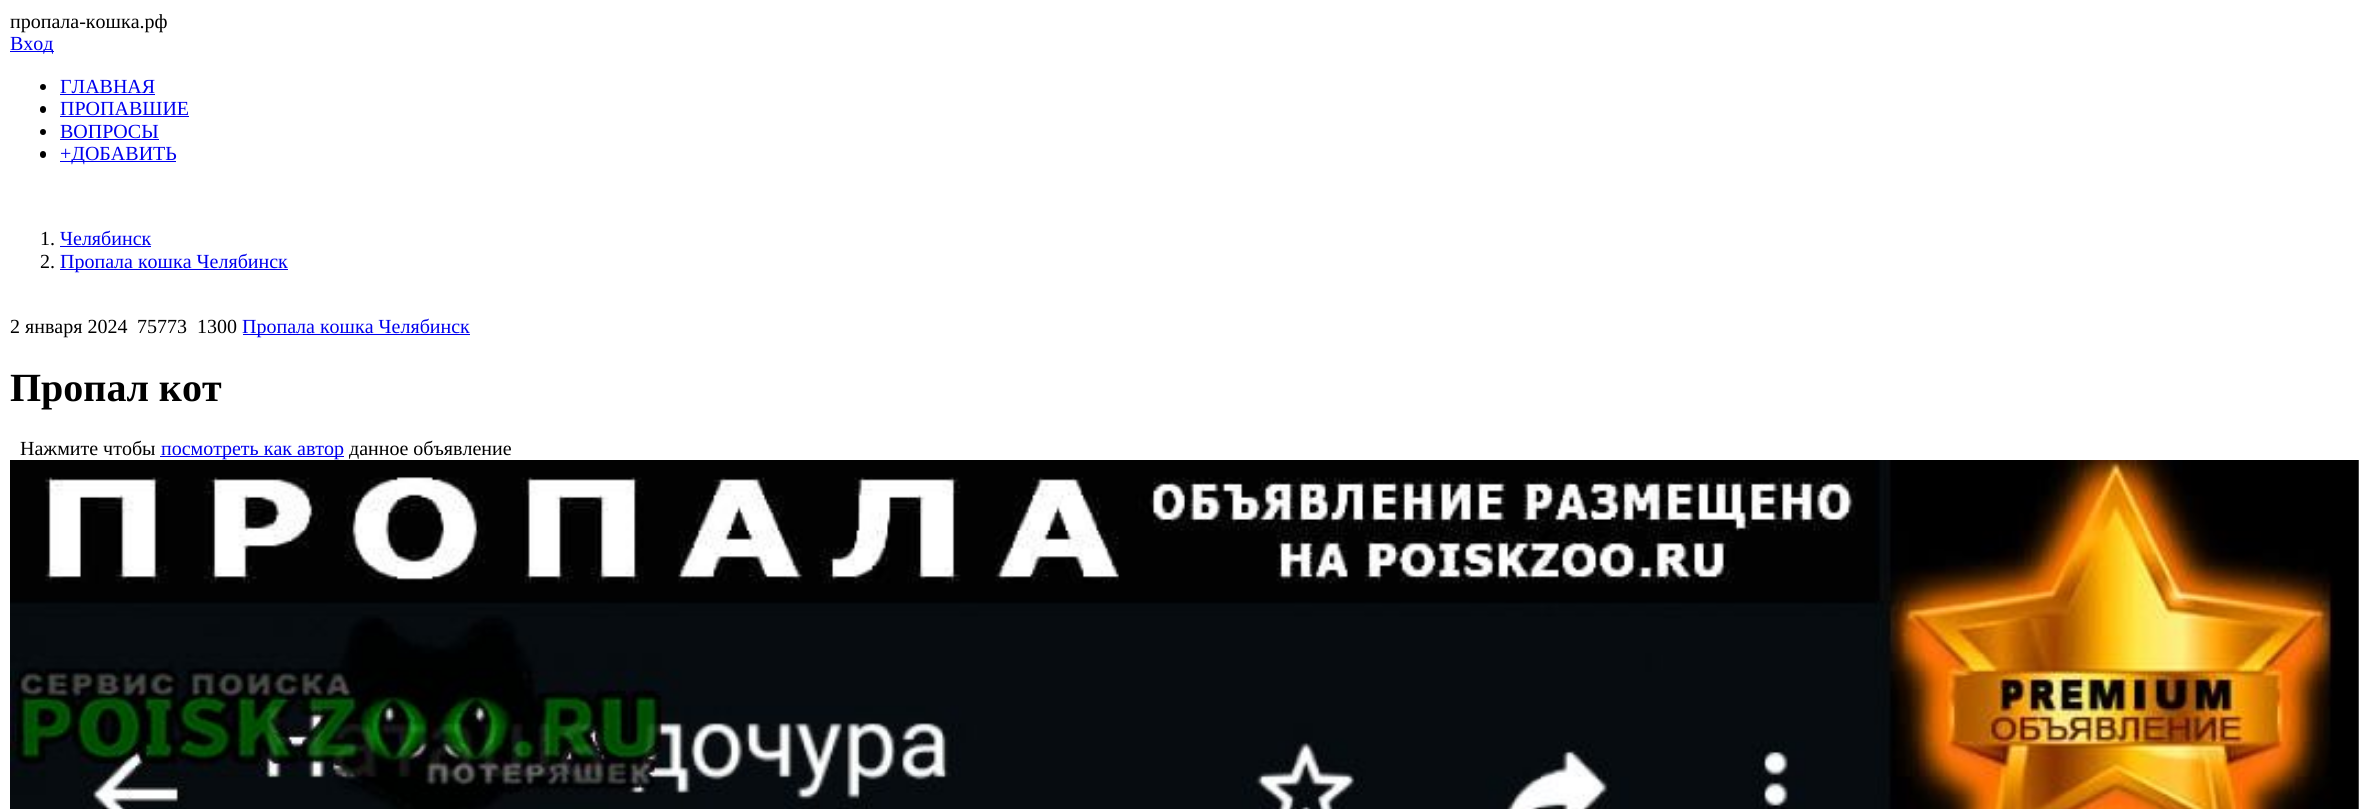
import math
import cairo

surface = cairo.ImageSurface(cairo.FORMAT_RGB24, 2368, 809)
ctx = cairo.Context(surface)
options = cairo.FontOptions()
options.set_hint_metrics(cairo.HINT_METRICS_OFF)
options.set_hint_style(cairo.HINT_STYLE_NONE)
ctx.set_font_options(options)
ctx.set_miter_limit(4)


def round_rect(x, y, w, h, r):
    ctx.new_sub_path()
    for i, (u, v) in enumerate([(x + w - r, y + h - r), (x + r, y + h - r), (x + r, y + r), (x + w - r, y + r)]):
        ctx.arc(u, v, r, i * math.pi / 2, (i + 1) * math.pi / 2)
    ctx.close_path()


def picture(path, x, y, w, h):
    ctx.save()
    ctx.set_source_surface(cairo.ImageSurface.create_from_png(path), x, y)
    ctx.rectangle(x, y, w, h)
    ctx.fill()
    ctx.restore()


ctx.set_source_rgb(1, 1, 1)
ctx.paint()
ctx.select_font_face("Liberation Serif")
ctx.set_font_size(20)
ctx.set_source_rgb(0, 0, 0)
ctx.move_to(10, 28)
ctx.show_text("пропала-кошка.рф")
ctx.set_source_rgb(0, 0, 0.933)
ctx.rectangle(10, 51, 44, 1)
ctx.fill()
ctx.move_to(10, 50)
ctx.show_text("Вход")
ctx.set_source_rgb(0, 0, 0)
ctx.new_path()
ctx.arc(43, 87, 3, 0, 2 * math.pi)
ctx.fill()
ctx.set_source_rgb(0, 0, 0.933)
ctx.move_to(60, 93)
ctx.show_text("ГЛАВНАЯ")
ctx.rectangle(60, 94, 95, 1)
ctx.fill()
ctx.set_source_rgb(0, 0, 0)
round_rect(40, 106, 6, 7, 3)
ctx.fill()
ctx.set_source_rgb(0, 0, 0.933)
ctx.move_to(60, 115)
ctx.show_text("ПРОПАВШИЕ")
ctx.rectangle(60, 116, 129, 1)
ctx.fill()
ctx.set_source_rgb(0, 0, 0)
ctx.arc(43, 132, 3, 0, 2 * math.pi)
ctx.fill()
ctx.set_source_rgb(0, 0, 0.933)
ctx.move_to(60, 138)
ctx.show_text("ВОПРОСЫ")
ctx.rectangle(60, 139, 99, 1)
ctx.fill()
ctx.set_source_rgb(0, 0, 0)
round_rect(40, 151, 6, 7, 3)
ctx.fill()
ctx.set_source_rgb(0, 0, 0.933)
ctx.rectangle(60, 161, 116, 1)
ctx.fill()
ctx.move_to(60, 160)
ctx.show_text("+ДОБАВИТЬ")
ctx.set_source_rgb(0, 0, 0)
ctx.move_to(40, 245)
ctx.show_text("1.")
ctx.set_source_rgb(0, 0, 0.933)
ctx.move_to(60, 245)
ctx.show_text("Челябинск")
ctx.rectangle(60, 246, 91, 1)
ctx.fill()
ctx.set_source_rgb(0, 0, 0)
ctx.move_to(40, 268)
ctx.show_text("2.")
ctx.set_source_rgb(0, 0, 0.933)
ctx.rectangle(60, 269, 228, 1)
ctx.fill()
ctx.move_to(60, 268)
ctx.show_text("Пропала кошка Челябинск")
ctx.set_source_rgb(0, 0, 0)
ctx.move_to(10, 333)
ctx.show_text("2 января 2024")
ctx.move_to(137, 333)
ctx.show_text("75773")
ctx.move_to(197, 333)
ctx.show_text("1300")
ctx.set_source_rgb(0, 0, 0.933)
ctx.rectangle(243, 334, 227, 1)
ctx.fill()
ctx.move_to(242, 333)
ctx.show_text("Пропала кошка Челябинск")
ctx.select_font_face("Liberation Serif", cairo.FONT_SLANT_NORMAL, cairo.FONT_WEIGHT_BOLD)
ctx.set_font_size(40)
ctx.set_source_rgb(0, 0, 0)
ctx.move_to(10, 401)
ctx.show_text("Пропал кот")
ctx.select_font_face("Liberation Serif")
ctx.set_font_size(20)
ctx.move_to(20, 455)
ctx.show_text("Нажмите чтобы")
ctx.set_source_rgb(0, 0, 0.933)
ctx.rectangle(160, 456, 184, 1)
ctx.fill()
ctx.move_to(161, 455)
ctx.show_text("посмотреть как автор")
ctx.set_source_rgb(0, 0, 0)
ctx.move_to(349, 455)
ctx.show_text("данное объявление")
picture("img1.png", 10, 460, 2349, 349)
surface.write_to_png("page.png")
